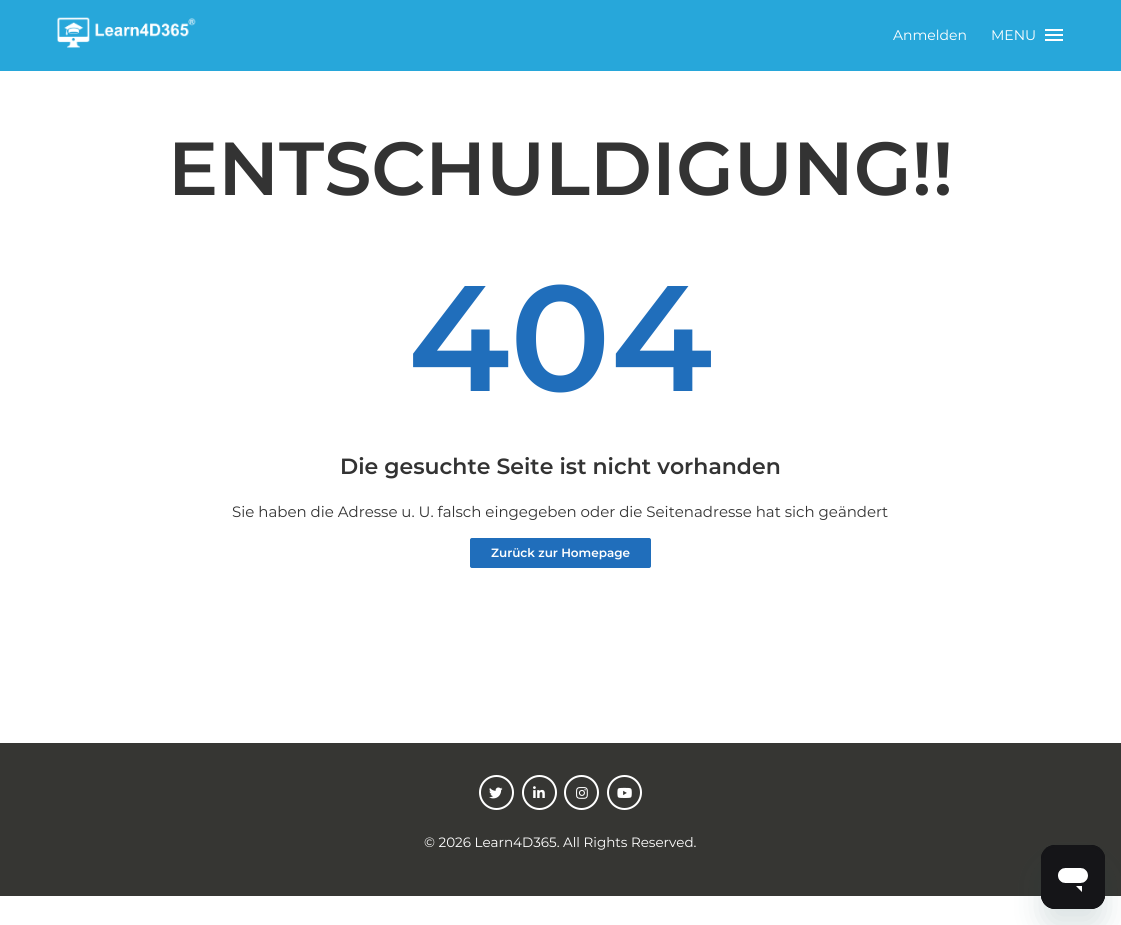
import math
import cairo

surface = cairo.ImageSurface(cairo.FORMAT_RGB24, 1121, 925)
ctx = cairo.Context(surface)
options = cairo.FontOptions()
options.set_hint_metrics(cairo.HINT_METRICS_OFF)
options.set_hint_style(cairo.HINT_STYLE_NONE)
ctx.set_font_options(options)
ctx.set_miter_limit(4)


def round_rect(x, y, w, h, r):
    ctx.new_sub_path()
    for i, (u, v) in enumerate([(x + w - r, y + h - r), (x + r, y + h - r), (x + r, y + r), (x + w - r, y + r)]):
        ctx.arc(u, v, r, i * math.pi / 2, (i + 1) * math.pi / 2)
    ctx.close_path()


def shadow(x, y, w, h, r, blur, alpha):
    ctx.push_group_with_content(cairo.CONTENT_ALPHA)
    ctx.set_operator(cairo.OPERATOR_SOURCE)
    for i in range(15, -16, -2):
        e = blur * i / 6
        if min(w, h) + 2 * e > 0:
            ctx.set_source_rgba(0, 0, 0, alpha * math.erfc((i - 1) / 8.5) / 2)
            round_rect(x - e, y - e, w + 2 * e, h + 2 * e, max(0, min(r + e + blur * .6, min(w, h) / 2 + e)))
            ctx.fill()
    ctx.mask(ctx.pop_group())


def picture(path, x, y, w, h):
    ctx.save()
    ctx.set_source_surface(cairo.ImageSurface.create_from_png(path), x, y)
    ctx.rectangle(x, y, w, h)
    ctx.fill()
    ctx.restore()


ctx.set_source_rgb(1, 1, 1)
ctx.paint()
ctx.set_source_rgb(0.153, 0.655, 0.855)
ctx.rectangle(0, 0, 1121, 71)
ctx.fill()
picture("img1.png", 57, 17, 139, 31)
ctx.select_font_face("Montserrat")
ctx.set_font_size(14)
ctx.set_source_rgb(1, 1, 1)
ctx.move_to(893, 40)
ctx.show_text("Anmelden")
ctx.move_to(991, 40)
ctx.show_text("MENU")
ctx.rectangle(1045, 34, 18, 2)
ctx.fill()
ctx.rectangle(1045, 29, 18, 2)
ctx.fill()
ctx.rectangle(1045, 39, 18, 2)
ctx.fill()
ctx.select_font_face("Montserrat SemiBold")
ctx.set_font_size(75)
ctx.set_source_rgb(0.2, 0.2, 0.2)
ctx.move_to(168, 195)
ctx.show_text("ENTSCHULDIGUNG!!")
ctx.set_font_size(150)
ctx.set_source_rgb(0.125, 0.431, 0.733)
ctx.move_to(408, 391)
ctx.show_text("404")
ctx.set_font_size(22)
ctx.set_source_rgb(0.2, 0.2, 0.2)
ctx.move_to(340, 474)
ctx.show_text("Die gesuchte Seite ist nicht vorhanden")
ctx.select_font_face("Montserrat")
ctx.set_font_size(15)
ctx.move_to(232, 517)
ctx.show_text("Sie haben die Adresse u. U. falsch eingegeben oder die Seitenadresse hat sich geändert")
ctx.set_source_rgb(0.125, 0.431, 0.733)
round_rect(470.5, 538.5, 180, 29, 1.5)
ctx.fill_preserve()
ctx.set_line_width(1)
ctx.stroke()
ctx.select_font_face("Montserrat SemiBold")
ctx.set_font_size(12)
ctx.set_source_rgb(1, 1, 1)
ctx.move_to(491, 557)
ctx.show_text("Zurück zur Homepage")
ctx.set_source_rgb(0.212, 0.212, 0.2)
ctx.rectangle(0, 743, 1121, 153)
ctx.fill()
ctx.arc(496.5, 792.5, 16.5, 0, 2 * math.pi)
ctx.set_source_rgb(1, 1, 1)
ctx.set_line_width(2)
ctx.stroke()
picture("img2.png", 489, 787, 14, 12)
ctx.arc(539.5, 792.5, 16.5, 0, 2 * math.pi)
ctx.stroke()
picture("img3.png", 533, 786, 12, 12)
ctx.arc(581.5, 792.5, 16.5, 0, 2 * math.pi)
ctx.stroke()
picture("img4.png", 576, 787, 12, 12)
ctx.arc(624.5, 792.5, 16.5, 0, 2 * math.pi)
ctx.stroke()
picture("img5.png", 617, 787, 15, 11)
ctx.select_font_face("Montserrat")
ctx.set_font_size(13.5)
ctx.move_to(424, 847)
ctx.show_text("© 2026 Learn4D365. All Rights Reserved.")
ctx.set_source_rgb(0.09, 0.286, 0.302)
shadow(1041, 865, 64, 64, 14, 15, 0.15)
picture("img6.png", 1041, 845, 64, 64)
surface.write_to_png("page.png")
